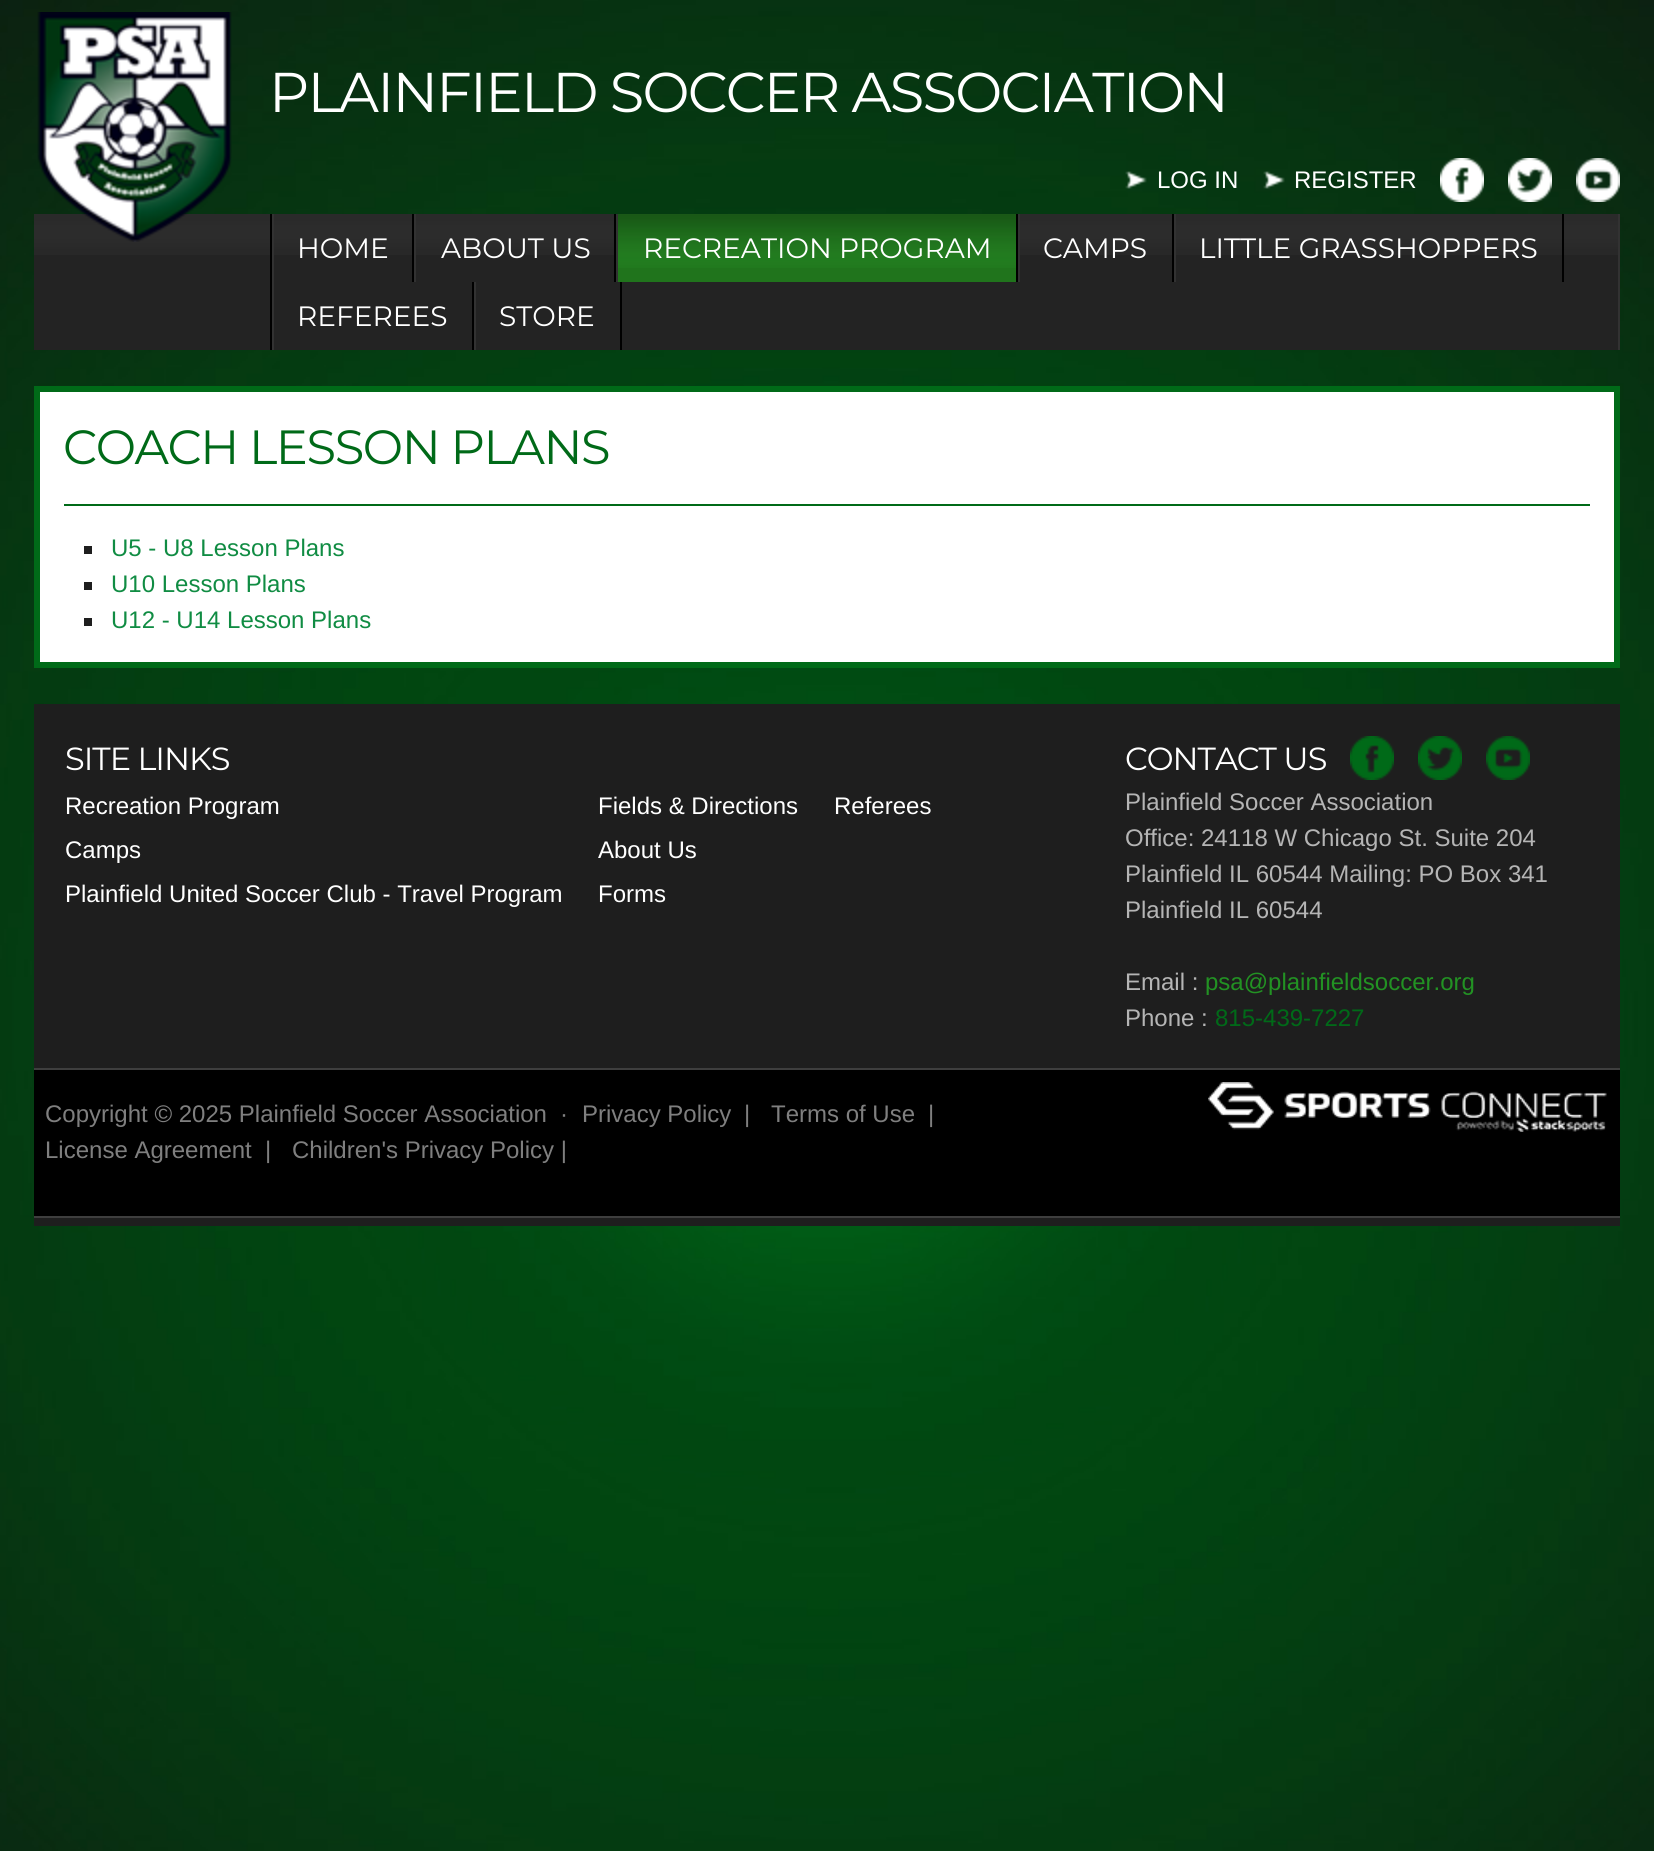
import math
import cairo

surface = cairo.ImageSurface(cairo.FORMAT_RGB24, 1654, 1851)
ctx = cairo.Context(surface)
options = cairo.FontOptions()
options.set_hint_metrics(cairo.HINT_METRICS_OFF)
options.set_hint_style(cairo.HINT_STYLE_NONE)
ctx.set_font_options(options)
ctx.set_miter_limit(4)


def spaced_text(x, y, s, letter, word):
    ctx.move_to(x, y)
    for ch in s:
        ctx.show_text(ch)
        ctx.rel_move_to(letter + word * (ch == ' '), 0)


def picture(path, x, y, w, h):
    ctx.save()
    ctx.set_source_surface(cairo.ImageSurface.create_from_png(path), x, y)
    ctx.rectangle(x, y, w, h)
    ctx.fill()
    ctx.restore()


ctx.set_source_rgb(1, 1, 1)
ctx.paint()
picture("img1.png", 0, 0, 1654, 1851)
picture("img8.png", 34, 214, 1584, 41)
picture("img2.png", 37, 12, 195, 230)
ctx.select_font_face("Montserrat")
ctx.set_font_size(56)
ctx.set_source_rgb(1, 1, 1)
spaced_text(269, 112, "PLAINFIELD SOCCER ASSOCIATION", -1.7, 0)
picture("img3.png", 1125, 171, 22, 18)
ctx.select_font_face("Liberation Sans")
ctx.set_font_size(24)
ctx.move_to(1157, 188)
ctx.show_text("LOG IN")
picture("img4.png", 1263, 171, 22, 18)
ctx.move_to(1294, 188)
ctx.show_text("REGISTER")
picture("img5.png", 1440, 158, 44, 44)
picture("img6.png", 1508, 158, 44, 44)
picture("img7.png", 1576, 158, 44, 44)
ctx.set_source_rgb(0.137, 0.137, 0.137)
ctx.rectangle(34, 255, 1584, 95)
ctx.fill()
ctx.set_source_rgb(0.196, 0.196, 0.196)
ctx.rectangle(1618, 214, 2, 136)
ctx.fill()
ctx.set_source_rgb(0, 0, 0)
ctx.rectangle(270, 214, 2, 136)
ctx.fill()
ctx.rectangle(412, 214, 2, 68)
ctx.fill()
ctx.set_source_rgb(0.196, 0.196, 0.196)
ctx.rectangle(272, 214, 2, 136)
ctx.fill()
ctx.select_font_face("Montserrat")
ctx.set_font_size(28)
ctx.set_source_rgb(1, 1, 1)
ctx.move_to(297, 258)
ctx.show_text("HOME")
ctx.set_source_rgb(0, 0, 0)
ctx.rectangle(614, 214, 2, 68)
ctx.fill()
ctx.set_source_rgb(0.196, 0.196, 0.196)
ctx.rectangle(414, 214, 2, 68)
ctx.fill()
ctx.set_source_rgb(1, 1, 1)
ctx.move_to(441, 258)
ctx.show_text("ABOUT US")
ctx.set_source_rgb(0.125, 0.455, 0.11)
ctx.rectangle(618, 268, 398, 14)
ctx.fill()
picture("img9.png", 618, 214, 398, 54)
ctx.set_source_rgb(0, 0, 0)
ctx.rectangle(1016, 214, 2, 68)
ctx.fill()
ctx.set_source_rgb(0.196, 0.196, 0.196)
ctx.rectangle(616, 214, 2, 68)
ctx.fill()
ctx.set_source_rgb(1, 1, 1)
ctx.move_to(643, 258)
ctx.show_text("RECREATION PROGRAM")
ctx.set_source_rgb(0, 0, 0)
ctx.rectangle(1172, 214, 2, 68)
ctx.fill()
ctx.set_source_rgb(0.196, 0.196, 0.196)
ctx.rectangle(1018, 214, 2, 68)
ctx.fill()
ctx.set_source_rgb(1, 1, 1)
ctx.move_to(1043, 258)
ctx.show_text("CAMPS")
ctx.set_source_rgb(0, 0, 0)
ctx.rectangle(1562, 214, 2, 68)
ctx.fill()
ctx.set_source_rgb(0.196, 0.196, 0.196)
ctx.rectangle(1174, 214, 2, 68)
ctx.fill()
ctx.set_source_rgb(1, 1, 1)
ctx.move_to(1199, 258)
ctx.show_text("LITTLE GRASSHOPPERS")
ctx.set_source_rgb(0, 0, 0)
ctx.rectangle(472, 282, 2, 68)
ctx.fill()
ctx.set_source_rgb(1, 1, 1)
ctx.move_to(297, 326)
ctx.show_text("REFEREES")
ctx.set_source_rgb(0, 0, 0)
ctx.rectangle(620, 282, 2, 68)
ctx.fill()
ctx.set_source_rgb(0.196, 0.196, 0.196)
ctx.rectangle(474, 282, 2, 68)
ctx.fill()
ctx.set_source_rgb(1, 1, 1)
ctx.move_to(499, 326)
ctx.show_text("STORE")
ctx.rectangle(37, 389, 1580, 276)
ctx.fill_preserve()
ctx.set_source_rgb(0, 0.416, 0.094)
ctx.set_line_width(6)
ctx.stroke()
ctx.rectangle(64, 504, 1526, 2)
ctx.fill()
ctx.set_font_size(48)
spaced_text(63, 464, "COACH LESSON PLANS", -1.4, 0)
ctx.set_source_rgb(0.118, 0.118, 0.118)
ctx.rectangle(84, 546, 8, 8)
ctx.fill()
ctx.select_font_face("Liberation Sans")
ctx.set_font_size(24)
ctx.set_source_rgb(0.063, 0.549, 0.263)
ctx.move_to(111, 556)
ctx.show_text("U5 - U8 Lesson Plans")
ctx.set_source_rgb(0.118, 0.118, 0.118)
ctx.rectangle(84, 582, 8, 8)
ctx.fill()
ctx.set_source_rgb(0.063, 0.549, 0.263)
ctx.move_to(111, 592)
ctx.show_text("U10 Lesson Plans")
ctx.set_source_rgb(0.118, 0.118, 0.118)
ctx.rectangle(84, 618, 8, 8)
ctx.fill()
ctx.set_source_rgb(0.063, 0.549, 0.263)
ctx.move_to(111, 628)
ctx.show_text("U12 - U14 Lesson Plans")
ctx.set_source_rgb(0.118, 0.118, 0.118)
ctx.rectangle(34, 704, 1586, 522)
ctx.fill()
ctx.select_font_face("Montserrat")
ctx.set_font_size(32)
ctx.set_source_rgb(1, 1, 1)
spaced_text(65, 770, "SITE LINKS", -1, 0)
ctx.select_font_face("Liberation Sans")
ctx.set_font_size(24)
ctx.move_to(65, 814)
ctx.show_text("Recreation Program")
ctx.move_to(65, 858)
ctx.show_text("Camps")
ctx.move_to(65, 902)
ctx.show_text("Plainfield United Soccer Club - Travel Program")
ctx.move_to(598, 814)
ctx.show_text("Fields & Directions")
ctx.move_to(598, 858)
ctx.show_text("About Us")
ctx.move_to(598, 902)
ctx.show_text("Forms")
ctx.move_to(834, 814)
ctx.show_text("Referees")
ctx.select_font_face("Montserrat")
ctx.set_font_size(32)
spaced_text(1125, 770, "CONTACT US", -1, 0)
picture("img10.png", 1350, 736, 44, 44)
picture("img11.png", 1418, 736, 44, 44)
picture("img12.png", 1486, 736, 44, 44)
ctx.select_font_face("Liberation Sans")
ctx.set_font_size(24)
ctx.set_source_rgb(0.71, 0.71, 0.71)
ctx.move_to(1125, 810)
ctx.show_text("Plainfield Soccer Association")
ctx.move_to(1125, 846)
ctx.show_text("Office: 24118 W Chicago St. Suite 204")
ctx.move_to(1125, 882)
ctx.show_text("Plainfield IL 60544 Mailing: PO Box 341")
ctx.move_to(1125, 918)
ctx.show_text("Plainfield IL 60544")
ctx.move_to(1125, 990)
ctx.show_text("Email :")
ctx.set_source_rgb(0.133, 0.573, 0.137)
ctx.move_to(1205, 990)
ctx.show_text("psa@plainfieldsoccer.org")
ctx.set_source_rgb(0.71, 0.71, 0.71)
ctx.move_to(1125, 1026)
ctx.show_text("Phone :")
ctx.set_source_rgb(0, 0.416, 0.094)
ctx.move_to(1215, 1026)
ctx.show_text("815-439-7227")
ctx.set_source_rgb(0, 0, 0)
ctx.rectangle(34, 1070, 1586, 146)
ctx.fill()
ctx.set_source_rgb(0.243, 0.243, 0.243)
ctx.rectangle(34, 1068, 1586, 2)
ctx.fill()
ctx.rectangle(34, 1216, 1586, 2)
ctx.fill()
ctx.set_source_rgb(0.498, 0.498, 0.498)
ctx.move_to(45, 1122)
ctx.show_text("Copyright © 2025 Plainfield Soccer Association")
ctx.move_to(560, 1122)
ctx.show_text("·")
ctx.move_to(582, 1122)
ctx.show_text("Privacy Policy")
ctx.move_to(744, 1122)
ctx.show_text("|")
ctx.move_to(771, 1122)
ctx.show_text("Terms of Use")
ctx.move_to(928, 1122)
ctx.show_text("|")
ctx.move_to(45, 1158)
ctx.show_text("License Agreement")
ctx.move_to(265, 1158)
ctx.show_text("|")
ctx.move_to(292, 1158)
ctx.show_text("Children's Privacy Policy |")
picture("img13.png", 1208, 1082, 399, 50)
surface.write_to_png("page.png")
